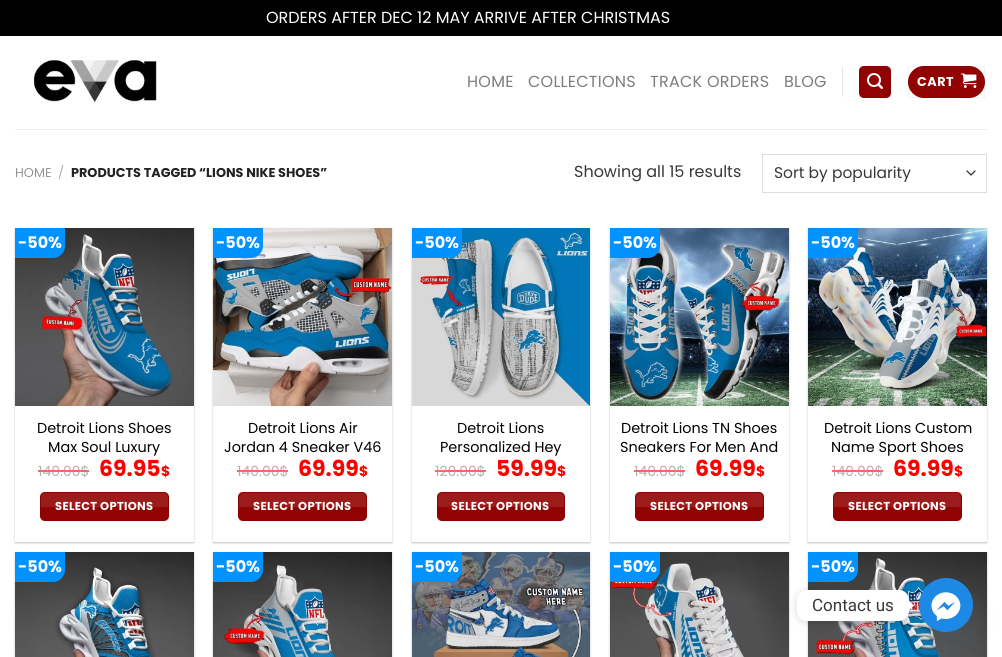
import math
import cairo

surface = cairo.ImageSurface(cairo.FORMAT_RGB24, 1002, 657)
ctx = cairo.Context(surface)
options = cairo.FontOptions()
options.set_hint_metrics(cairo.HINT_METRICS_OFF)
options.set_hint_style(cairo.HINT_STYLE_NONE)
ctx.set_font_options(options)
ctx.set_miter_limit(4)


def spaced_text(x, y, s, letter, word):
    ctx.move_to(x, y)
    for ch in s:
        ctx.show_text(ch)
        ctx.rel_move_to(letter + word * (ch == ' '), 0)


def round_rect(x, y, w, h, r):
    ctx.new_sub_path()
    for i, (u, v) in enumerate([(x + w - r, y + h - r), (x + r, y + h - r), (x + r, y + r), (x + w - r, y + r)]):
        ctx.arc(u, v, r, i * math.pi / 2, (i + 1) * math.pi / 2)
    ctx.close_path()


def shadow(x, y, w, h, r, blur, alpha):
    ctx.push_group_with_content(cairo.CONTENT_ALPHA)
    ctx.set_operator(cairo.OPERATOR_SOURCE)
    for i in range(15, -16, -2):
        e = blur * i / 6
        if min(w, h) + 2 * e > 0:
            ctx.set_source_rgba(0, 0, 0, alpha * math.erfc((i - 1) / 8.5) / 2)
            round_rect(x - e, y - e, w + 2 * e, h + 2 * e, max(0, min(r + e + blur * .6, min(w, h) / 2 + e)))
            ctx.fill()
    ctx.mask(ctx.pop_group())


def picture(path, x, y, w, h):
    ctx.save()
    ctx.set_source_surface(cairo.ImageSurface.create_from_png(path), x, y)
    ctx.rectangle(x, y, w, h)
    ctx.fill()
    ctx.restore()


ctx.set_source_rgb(0, 0, 0)
ctx.paint()
ctx.select_font_face("Poppins")
ctx.set_font_size(16)
ctx.set_source_rgb(1, 1, 1)
ctx.move_to(266, 23)
ctx.show_text("ORDERS AFTER DEC 12 MAY ARRIVE AFTER CHRISTMAS")
ctx.rectangle(0, 36, 1002, 621)
ctx.fill()
picture("img1.png", 33, 60, 124, 43)
ctx.set_source_rgb(0.49, 0.49, 0.49)
spaced_text(467, 87, "HOME", 0.25, 0)
spaced_text(528, 87, "COLLECTIONS", 0.25, 0)
spaced_text(650, 87, "TRACK ORDERS", 0.25, 0)
spaced_text(784, 87, "BLOG", 0.25, 0)
ctx.set_source_rgb(0.902, 0.902, 0.902)
ctx.rectangle(842, 67, 1, 30)
ctx.fill()
ctx.set_source_rgb(0.569, 0.008, 0.008)
round_rect(859, 66, 32, 32, 5)
ctx.fill()
ctx.rectangle(859.5, 66.5, 31, 31)
ctx.set_source_rgba(0, 0, 0, 0.05)
ctx.set_line_width(1)
ctx.stroke()
picture("img2.png", 867, 73, 16, 16)
ctx.set_source_rgb(0.569, 0.008, 0.008)
round_rect(908, 66, 77, 32, 16)
ctx.fill()
ctx.rectangle(908.5, 66.5, 76, 31)
ctx.set_source_rgba(0, 0, 0, 0.05)
ctx.stroke()
ctx.select_font_face("Poppins", cairo.FONT_SLANT_NORMAL, cairo.FONT_WEIGHT_BOLD)
ctx.set_font_size(12.8)
ctx.set_source_rgb(1, 1, 1)
spaced_text(917, 86, "CART", 0.5, 0)
picture("img3.png", 961, 73, 16, 15)
ctx.set_source_rgb(0.922, 0.922, 0.922)
ctx.rectangle(15, 129, 972, 1)
ctx.fill()
ctx.select_font_face("Poppins")
ctx.set_source_rgb(0.58, 0.58, 0.58)
ctx.move_to(15, 177)
ctx.show_text("HOME")
ctx.set_source_rgb(0.698, 0.698, 0.698)
ctx.move_to(58, 177)
ctx.show_text("/")
ctx.select_font_face("Poppins", cairo.FONT_SLANT_NORMAL, cairo.FONT_WEIGHT_BOLD)
ctx.set_source_rgb(0.133, 0.133, 0.133)
ctx.move_to(71, 177)
ctx.show_text("PRODUCTS TAGGED “LIONS NIKE SHOES”")
ctx.select_font_face("Poppins")
ctx.set_font_size(16)
ctx.set_source_rgb(0.22, 0.22, 0.22)
ctx.move_to(574, 177)
ctx.show_text("Showing all 15 results")
ctx.new_path()
ctx.move_to(967, 171)
ctx.line_to(971, 175)
ctx.line_to(975, 171)
ctx.set_source_rgb(0.2, 0.2, 0.2)
ctx.set_line_width(1.3)
ctx.set_line_cap(cairo.LINE_CAP_ROUND)
ctx.set_line_join(cairo.LINE_JOIN_ROUND)
ctx.stroke()
ctx.rectangle(762.5, 154.5, 224, 38)
ctx.set_source_rgb(0.867, 0.867, 0.867)
ctx.set_line_width(1)
ctx.set_line_cap(cairo.LINE_CAP_BUTT)
ctx.set_line_join(cairo.LINE_JOIN_MITER)
ctx.stroke()
ctx.set_font_size(15.5)
ctx.set_source_rgb(0.22, 0.22, 0.22)
ctx.move_to(774, 178)
ctx.show_text("Sort by popularity")
ctx.save()
ctx.set_fill_rule(cairo.FILL_RULE_EVEN_ODD)
ctx.new_path()
ctx.move_to(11, 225)
ctx.line_to(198, 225)
ctx.line_to(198, 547)
ctx.line_to(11, 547)
ctx.close_path()
ctx.move_to(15, 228)
ctx.line_to(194, 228)
ctx.line_to(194, 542)
ctx.line_to(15, 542)
ctx.close_path()
ctx.clip()
ctx.set_source_rgb(0, 0, 0)
shadow(15, 229, 179, 314, 0, 1, 0.24)
ctx.restore()
picture("img4.png", 15, 228, 179, 178)
ctx.set_source_rgb(0, 0.573, 1)
ctx.new_path()
ctx.move_to(15, 228)
ctx.line_to(65, 228)
ctx.line_to(65, 246)
ctx.curve_to(65, 252.5, 59.5, 258, 53, 258)
ctx.line_to(15, 258)
ctx.close_path()
ctx.fill()
ctx.select_font_face("Poppins", cairo.FONT_SLANT_NORMAL, cairo.FONT_WEIGHT_BOLD)
ctx.set_font_size(16)
ctx.set_source_rgb(1, 1, 1)
ctx.move_to(18, 248)
ctx.show_text("-50%")
ctx.select_font_face("Poppins")
ctx.set_font_size(14.4)
ctx.set_source_rgb(0, 0, 0)
ctx.move_to(37, 433)
ctx.show_text("Detroit Lions Shoes")
ctx.move_to(48, 452)
ctx.show_text("Max Soul Luxury")
ctx.set_font_size(14)
ctx.set_source_rgb(0.698, 0.698, 0.698)
ctx.move_to(38, 476)
ctx.show_text("140.00$")
ctx.set_source_rgb(1, 0.4, 0.4)
ctx.rectangle(38, 470, 51, 2)
ctx.fill()
ctx.select_font_face("Poppins", cairo.FONT_SLANT_NORMAL, cairo.FONT_WEIGHT_BOLD)
ctx.set_font_size(22)
ctx.set_source_rgb(1, 0, 0)
ctx.move_to(99, 476)
ctx.show_text("69.95")
ctx.set_font_size(14)
ctx.move_to(161, 476)
ctx.show_text("$")
ctx.set_source_rgb(0.569, 0.008, 0.008)
round_rect(40, 492, 129, 29, 5)
ctx.fill()
ctx.rectangle(40.5, 492.5, 128, 28)
ctx.set_source_rgba(0, 0, 0, 0.05)
ctx.stroke()
ctx.set_source_rgba(1, 1, 1, 0.1)
ctx.new_path()
ctx.move_to(45, 493)
ctx.line_to(164, 493)
ctx.curve_to(166, 493, 168, 495, 168, 497)
ctx.line_to(168, 507)
ctx.line_to(41, 507)
ctx.line_to(41, 497)
ctx.curve_to(41, 495, 43, 493, 45, 493)
ctx.close_path()
ctx.fill()
ctx.set_font_size(11.5)
ctx.set_source_rgb(1, 1, 1)
spaced_text(55, 510, "SELECT OPTIONS", 0.3, 0)
ctx.save()
ctx.set_fill_rule(cairo.FILL_RULE_EVEN_ODD)
ctx.new_path()
ctx.move_to(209, 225)
ctx.line_to(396, 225)
ctx.line_to(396, 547)
ctx.line_to(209, 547)
ctx.close_path()
ctx.move_to(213, 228)
ctx.line_to(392, 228)
ctx.line_to(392, 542)
ctx.line_to(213, 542)
ctx.close_path()
ctx.clip()
ctx.set_source_rgb(0, 0, 0)
shadow(213, 229, 179, 314, 0, 1, 0.24)
ctx.restore()
picture("img5.png", 213, 228, 179, 178)
ctx.set_source_rgb(0, 0.573, 1)
ctx.new_path()
ctx.move_to(213, 228)
ctx.line_to(263, 228)
ctx.line_to(263, 246)
ctx.curve_to(263, 252.5, 257.5, 258, 251, 258)
ctx.line_to(213, 258)
ctx.close_path()
ctx.fill()
ctx.set_font_size(16)
ctx.set_source_rgb(1, 1, 1)
ctx.move_to(216, 248)
ctx.show_text("-50%")
ctx.select_font_face("Poppins")
ctx.set_font_size(14.4)
ctx.set_source_rgb(0, 0, 0)
ctx.move_to(248, 433)
ctx.show_text("Detroit Lions Air")
ctx.move_to(224, 452)
ctx.show_text("Jordan 4 Sneaker V46")
ctx.set_font_size(14)
ctx.set_source_rgb(0.698, 0.698, 0.698)
ctx.move_to(237, 476)
ctx.show_text("140.00$")
ctx.set_source_rgb(1, 0.4, 0.4)
ctx.rectangle(237, 470, 51, 2)
ctx.fill()
ctx.select_font_face("Poppins", cairo.FONT_SLANT_NORMAL, cairo.FONT_WEIGHT_BOLD)
ctx.set_font_size(22)
ctx.set_source_rgb(1, 0, 0)
ctx.move_to(298, 476)
ctx.show_text("69.99")
ctx.set_font_size(14)
ctx.move_to(359, 476)
ctx.show_text("$")
ctx.set_source_rgb(0.569, 0.008, 0.008)
round_rect(238, 492, 129, 29, 5)
ctx.fill()
ctx.rectangle(238.5, 492.5, 128, 28)
ctx.set_source_rgba(0, 0, 0, 0.05)
ctx.stroke()
ctx.set_source_rgba(1, 1, 1, 0.1)
ctx.new_path()
ctx.move_to(243, 493)
ctx.line_to(362, 493)
ctx.curve_to(364, 493, 366, 495, 366, 497)
ctx.line_to(366, 507)
ctx.line_to(239, 507)
ctx.line_to(239, 497)
ctx.curve_to(239, 495, 241, 493, 243, 493)
ctx.close_path()
ctx.fill()
ctx.set_font_size(11.5)
ctx.set_source_rgb(1, 1, 1)
spaced_text(253, 510, "SELECT OPTIONS", 0.3, 0)
ctx.save()
ctx.set_fill_rule(cairo.FILL_RULE_EVEN_ODD)
ctx.new_path()
ctx.move_to(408, 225)
ctx.line_to(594, 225)
ctx.line_to(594, 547)
ctx.line_to(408, 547)
ctx.close_path()
ctx.move_to(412, 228)
ctx.line_to(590, 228)
ctx.line_to(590, 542)
ctx.line_to(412, 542)
ctx.close_path()
ctx.clip()
ctx.set_source_rgb(0, 0, 0)
shadow(412, 229, 178, 314, 0, 1, 0.24)
ctx.restore()
picture("img6.png", 412, 228, 178, 178)
ctx.set_source_rgb(0, 0.573, 1)
ctx.new_path()
ctx.move_to(412, 228)
ctx.line_to(462, 228)
ctx.line_to(462, 246)
ctx.curve_to(462, 252.5, 456.5, 258, 450, 258)
ctx.line_to(412, 258)
ctx.close_path()
ctx.fill()
ctx.set_font_size(16)
ctx.set_source_rgb(1, 1, 1)
ctx.move_to(415, 248)
ctx.show_text("-50%")
ctx.select_font_face("Poppins")
ctx.set_font_size(14.4)
ctx.set_source_rgb(0, 0, 0)
ctx.move_to(457, 433)
ctx.show_text("Detroit Lions")
ctx.move_to(440, 452)
ctx.show_text("Personalized Hey")
ctx.set_font_size(14)
ctx.set_source_rgb(0.698, 0.698, 0.698)
ctx.move_to(435, 476)
ctx.show_text("120.00$")
ctx.set_source_rgb(1, 0.4, 0.4)
ctx.rectangle(435, 470, 51, 2)
ctx.fill()
ctx.select_font_face("Poppins", cairo.FONT_SLANT_NORMAL, cairo.FONT_WEIGHT_BOLD)
ctx.set_font_size(22)
ctx.set_source_rgb(1, 0, 0)
ctx.move_to(496, 476)
ctx.show_text("59.99")
ctx.set_font_size(14)
ctx.move_to(557, 476)
ctx.show_text("$")
ctx.set_source_rgb(0.569, 0.008, 0.008)
round_rect(437, 492, 128, 29, 5)
ctx.fill()
ctx.rectangle(437.5, 492.5, 127, 28)
ctx.set_source_rgba(0, 0, 0, 0.05)
ctx.stroke()
ctx.set_source_rgba(1, 1, 1, 0.1)
ctx.new_path()
ctx.move_to(442, 493)
ctx.line_to(560, 493)
ctx.curve_to(562, 493, 564, 495, 564, 497)
ctx.line_to(564, 507)
ctx.line_to(438, 507)
ctx.line_to(438, 497)
ctx.curve_to(438, 495, 440, 493, 442, 493)
ctx.close_path()
ctx.fill()
ctx.set_font_size(11.5)
ctx.set_source_rgb(1, 1, 1)
spaced_text(451, 510, "SELECT OPTIONS", 0.3, 0)
ctx.save()
ctx.set_fill_rule(cairo.FILL_RULE_EVEN_ODD)
ctx.new_path()
ctx.move_to(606, 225)
ctx.line_to(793, 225)
ctx.line_to(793, 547)
ctx.line_to(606, 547)
ctx.close_path()
ctx.move_to(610, 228)
ctx.line_to(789, 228)
ctx.line_to(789, 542)
ctx.line_to(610, 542)
ctx.close_path()
ctx.clip()
ctx.set_source_rgb(0, 0, 0)
shadow(610, 229, 179, 314, 0, 1, 0.24)
ctx.restore()
picture("img7.png", 610, 228, 179, 178)
ctx.set_source_rgb(0, 0.573, 1)
ctx.new_path()
ctx.move_to(610, 228)
ctx.line_to(660, 228)
ctx.line_to(660, 246)
ctx.curve_to(660, 252.5, 654.5, 258, 648, 258)
ctx.line_to(610, 258)
ctx.close_path()
ctx.fill()
ctx.set_font_size(16)
ctx.set_source_rgb(1, 1, 1)
ctx.move_to(613, 248)
ctx.show_text("-50%")
ctx.select_font_face("Poppins")
ctx.set_font_size(14.4)
ctx.set_source_rgb(0, 0, 0)
ctx.move_to(621, 433)
ctx.show_text("Detroit Lions TN Shoes")
ctx.move_to(620, 452)
ctx.show_text("Sneakers For Men And")
ctx.set_font_size(14)
ctx.set_source_rgb(0.698, 0.698, 0.698)
ctx.move_to(634, 476)
ctx.show_text("140.00$")
ctx.set_source_rgb(1, 0.4, 0.4)
ctx.rectangle(634, 470, 51, 2)
ctx.fill()
ctx.select_font_face("Poppins", cairo.FONT_SLANT_NORMAL, cairo.FONT_WEIGHT_BOLD)
ctx.set_font_size(22)
ctx.set_source_rgb(1, 0, 0)
ctx.move_to(695, 476)
ctx.show_text("69.99")
ctx.set_font_size(14)
ctx.move_to(756, 476)
ctx.show_text("$")
ctx.set_source_rgb(0.569, 0.008, 0.008)
round_rect(635, 492, 129, 29, 5)
ctx.fill()
ctx.rectangle(635.5, 492.5, 128, 28)
ctx.set_source_rgba(0, 0, 0, 0.05)
ctx.stroke()
ctx.set_source_rgba(1, 1, 1, 0.1)
ctx.new_path()
ctx.move_to(640, 493)
ctx.line_to(759, 493)
ctx.curve_to(761, 493, 763, 495, 763, 497)
ctx.line_to(763, 507)
ctx.line_to(636, 507)
ctx.line_to(636, 497)
ctx.curve_to(636, 495, 638, 493, 640, 493)
ctx.close_path()
ctx.fill()
ctx.set_font_size(11.5)
ctx.set_source_rgb(1, 1, 1)
spaced_text(650, 510, "SELECT OPTIONS", 0.3, 0)
ctx.save()
ctx.set_fill_rule(cairo.FILL_RULE_EVEN_ODD)
ctx.new_path()
ctx.move_to(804, 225)
ctx.line_to(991, 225)
ctx.line_to(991, 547)
ctx.line_to(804, 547)
ctx.close_path()
ctx.move_to(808, 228)
ctx.line_to(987, 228)
ctx.line_to(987, 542)
ctx.line_to(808, 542)
ctx.close_path()
ctx.clip()
ctx.set_source_rgb(0, 0, 0)
shadow(808, 229, 179, 314, 0, 1, 0.24)
ctx.restore()
picture("img8.png", 808, 228, 179, 178)
ctx.set_source_rgb(0, 0.573, 1)
ctx.new_path()
ctx.move_to(808, 228)
ctx.line_to(858, 228)
ctx.line_to(858, 246)
ctx.curve_to(858, 252.5, 852.5, 258, 846, 258)
ctx.line_to(808, 258)
ctx.close_path()
ctx.fill()
ctx.set_font_size(16)
ctx.set_source_rgb(1, 1, 1)
ctx.move_to(811, 248)
ctx.show_text("-50%")
ctx.select_font_face("Poppins")
ctx.set_font_size(14.4)
ctx.set_source_rgb(0, 0, 0)
ctx.move_to(824, 433)
ctx.show_text("Detroit Lions Custom")
ctx.move_to(831, 452)
ctx.show_text("Name Sport Shoes")
ctx.set_font_size(14)
ctx.set_source_rgb(0.698, 0.698, 0.698)
ctx.move_to(832, 476)
ctx.show_text("140.00$")
ctx.set_source_rgb(1, 0.4, 0.4)
ctx.rectangle(832, 470, 51, 2)
ctx.fill()
ctx.select_font_face("Poppins", cairo.FONT_SLANT_NORMAL, cairo.FONT_WEIGHT_BOLD)
ctx.set_font_size(22)
ctx.set_source_rgb(1, 0, 0)
ctx.move_to(893, 476)
ctx.show_text("69.99")
ctx.set_font_size(14)
ctx.move_to(954, 476)
ctx.show_text("$")
ctx.set_source_rgb(0.569, 0.008, 0.008)
round_rect(833, 492, 129, 29, 5)
ctx.fill()
ctx.rectangle(833.5, 492.5, 128, 28)
ctx.set_source_rgba(0, 0, 0, 0.05)
ctx.stroke()
ctx.set_source_rgba(1, 1, 1, 0.1)
ctx.new_path()
ctx.move_to(838, 493)
ctx.line_to(957, 493)
ctx.curve_to(959, 493, 961, 495, 961, 497)
ctx.line_to(961, 507)
ctx.line_to(834, 507)
ctx.line_to(834, 497)
ctx.curve_to(834, 495, 836, 493, 838, 493)
ctx.close_path()
ctx.fill()
ctx.set_font_size(11.5)
ctx.set_source_rgb(1, 1, 1)
spaced_text(848, 510, "SELECT OPTIONS", 0.3, 0)
ctx.set_source_rgb(0, 0, 0)
shadow(15, 553, 179, 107, 0, 1, 0.24)
picture("img9.png", 15, 552, 179, 105)
ctx.set_source_rgb(0, 0.573, 1)
ctx.new_path()
ctx.move_to(15, 552)
ctx.line_to(65, 552)
ctx.line_to(65, 570)
ctx.curve_to(65, 576.5, 59.5, 582, 53, 582)
ctx.line_to(15, 582)
ctx.close_path()
ctx.fill()
ctx.set_font_size(16)
ctx.set_source_rgb(1, 1, 1)
ctx.move_to(18, 572)
ctx.show_text("-50%")
ctx.set_source_rgb(0, 0, 0)
shadow(213, 553, 179, 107, 0, 1, 0.24)
picture("img10.png", 213, 552, 179, 105)
ctx.set_source_rgb(0, 0.573, 1)
ctx.new_path()
ctx.move_to(213, 552)
ctx.line_to(263, 552)
ctx.line_to(263, 570)
ctx.curve_to(263, 576.5, 257.5, 582, 251, 582)
ctx.line_to(213, 582)
ctx.close_path()
ctx.fill()
ctx.set_source_rgb(1, 1, 1)
ctx.move_to(216, 572)
ctx.show_text("-50%")
ctx.set_source_rgb(0, 0, 0)
shadow(412, 553, 178, 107, 0, 1, 0.24)
picture("img11.png", 412, 552, 178, 105)
ctx.set_source_rgb(0, 0.573, 1)
ctx.new_path()
ctx.move_to(412, 552)
ctx.line_to(462, 552)
ctx.line_to(462, 570)
ctx.curve_to(462, 576.5, 456.5, 582, 450, 582)
ctx.line_to(412, 582)
ctx.close_path()
ctx.fill()
ctx.set_source_rgb(1, 1, 1)
ctx.move_to(415, 572)
ctx.show_text("-50%")
ctx.set_source_rgb(0, 0, 0)
shadow(610, 553, 179, 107, 0, 1, 0.24)
picture("img12.png", 610, 552, 179, 105)
ctx.set_source_rgb(0, 0.573, 1)
ctx.new_path()
ctx.move_to(610, 552)
ctx.line_to(660, 552)
ctx.line_to(660, 570)
ctx.curve_to(660, 576.5, 654.5, 582, 648, 582)
ctx.line_to(610, 582)
ctx.close_path()
ctx.fill()
ctx.set_source_rgb(1, 1, 1)
ctx.move_to(613, 572)
ctx.show_text("-50%")
ctx.set_source_rgb(0, 0, 0)
shadow(808, 553, 179, 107, 0, 1, 0.24)
picture("img13.png", 808, 552, 179, 105)
ctx.set_source_rgb(0, 0.573, 1)
ctx.new_path()
ctx.move_to(808, 552)
ctx.line_to(858, 552)
ctx.line_to(858, 570)
ctx.curve_to(858, 576.5, 852.5, 582, 846, 582)
ctx.line_to(808, 582)
ctx.close_path()
ctx.fill()
ctx.set_source_rgb(1, 1, 1)
ctx.move_to(811, 572)
ctx.show_text("-50%")
ctx.set_source_rgb(0.286, 0.408, 0.494)
shadow(919, 594, 54, 54, 27, 12, 0.16)
picture("img14.png", 919, 578, 54, 54)
ctx.set_source_rgb(0, 0, 0)
shadow(797, 591, 112, 31, 10, 4, 0.15)
ctx.set_source_rgb(1, 1, 1)
round_rect(797, 590, 112, 31, 10)
ctx.fill()
ctx.select_font_face("Roboto")
ctx.set_font_size(17)
ctx.set_source_rgb(0.22, 0.22, 0.22)
ctx.move_to(812, 611)
ctx.show_text("Contact us")
ctx.set_source_rgb(1, 1, 1)
ctx.new_path()
ctx.move_to(909, 610.5)
ctx.line_to(909, 600.5)
ctx.line_to(914, 605.5)
ctx.close_path()
ctx.fill()
surface.write_to_png("page.png")
